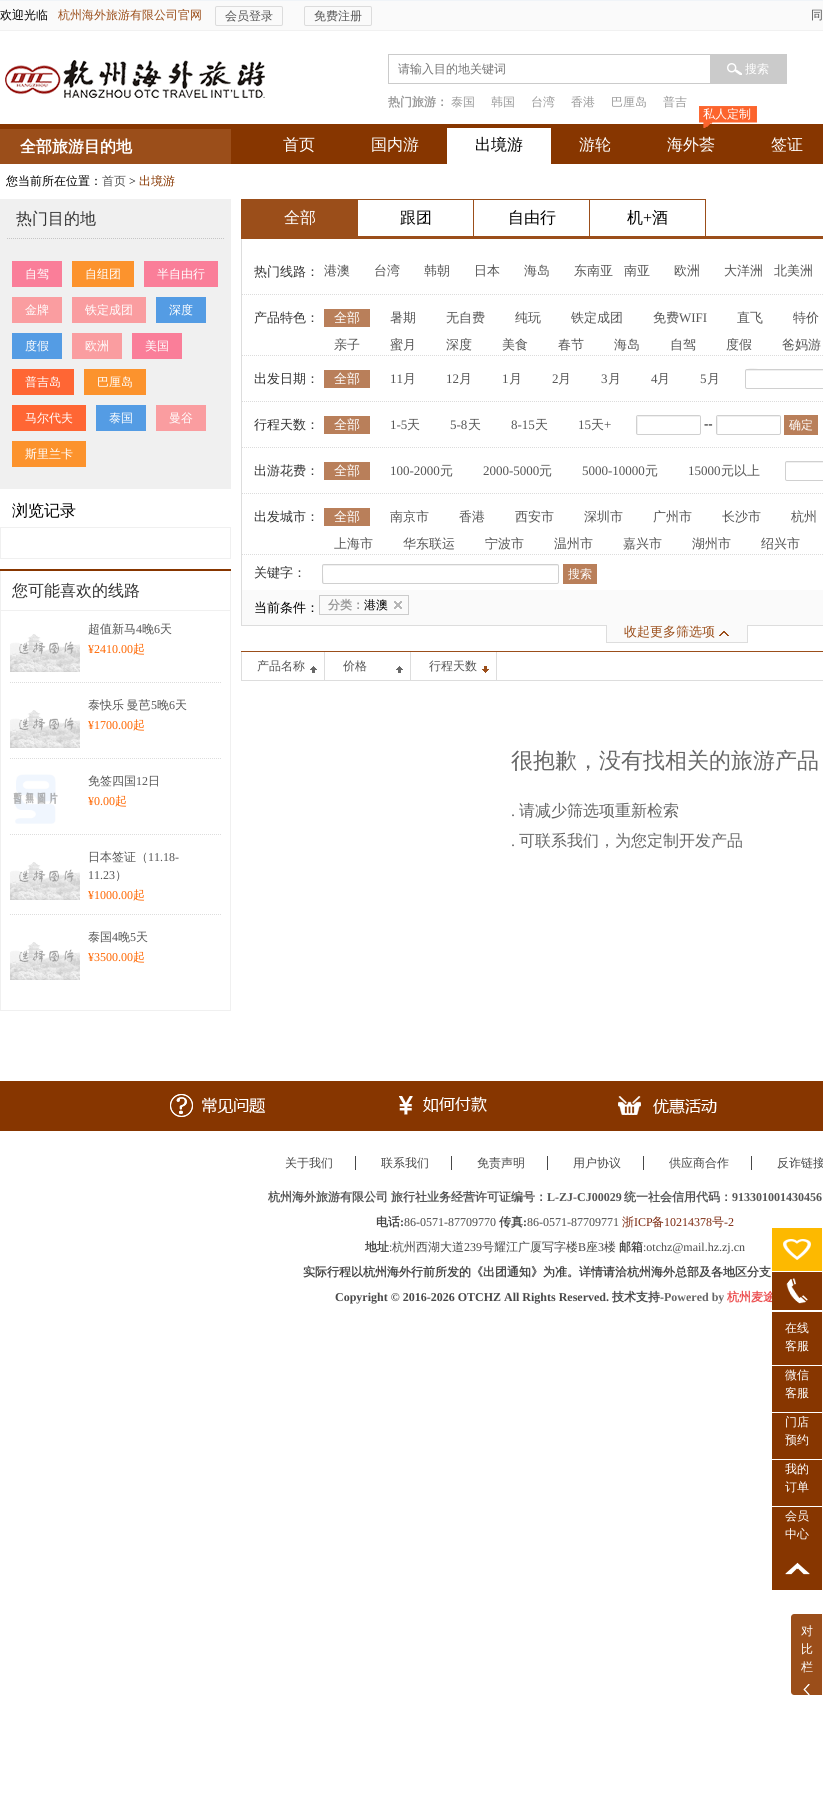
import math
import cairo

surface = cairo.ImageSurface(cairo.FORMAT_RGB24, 823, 1795)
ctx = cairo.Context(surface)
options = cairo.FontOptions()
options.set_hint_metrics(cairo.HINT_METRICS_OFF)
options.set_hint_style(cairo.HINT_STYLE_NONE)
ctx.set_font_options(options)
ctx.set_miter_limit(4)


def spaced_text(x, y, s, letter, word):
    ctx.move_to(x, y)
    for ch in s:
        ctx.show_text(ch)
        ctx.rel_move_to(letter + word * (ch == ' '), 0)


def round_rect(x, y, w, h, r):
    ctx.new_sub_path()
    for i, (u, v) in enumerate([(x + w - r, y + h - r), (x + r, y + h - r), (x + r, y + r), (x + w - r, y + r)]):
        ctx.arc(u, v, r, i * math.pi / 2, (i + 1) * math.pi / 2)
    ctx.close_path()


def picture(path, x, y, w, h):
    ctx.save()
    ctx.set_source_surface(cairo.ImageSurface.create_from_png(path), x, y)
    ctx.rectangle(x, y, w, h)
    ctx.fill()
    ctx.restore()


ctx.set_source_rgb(1, 1, 1)
ctx.paint()
ctx.set_source_rgb(0.98, 0.98, 0.98)
ctx.rectangle(0, 1, 823, 29)
ctx.fill()
ctx.set_source_rgb(0.941, 0.957, 0.969)
ctx.rectangle(0, 0, 823, 1)
ctx.fill()
ctx.set_source_rgb(0.945, 0.945, 0.945)
ctx.rectangle(0, 30, 823, 1)
ctx.fill()
ctx.select_font_face("WenQuanYi Zen Hei Medium")
ctx.set_font_size(12)
ctx.set_source_rgb(0, 0, 0)
ctx.move_to(0, 19)
ctx.show_text("欢迎光临")
ctx.set_source_rgb(0.608, 0.306, 0.102)
ctx.move_to(58, 19)
ctx.show_text("杭州海外旅游有限公司官网")
round_rect(215.5, 6.5, 67, 19, 1.5)
ctx.set_source_rgb(0.863, 0.863, 0.863)
ctx.set_line_width(1)
ctx.stroke()
ctx.set_source_rgb(0.333, 0.333, 0.333)
ctx.move_to(225, 20)
ctx.show_text("会员登录")
round_rect(304.5, 6.5, 67, 19, 1.5)
ctx.set_source_rgb(0.863, 0.863, 0.863)
ctx.stroke()
ctx.set_source_rgb(0.333, 0.333, 0.333)
ctx.move_to(314, 20)
ctx.show_text("免费注册")
ctx.move_to(811, 19)
ctx.show_text("同")
picture("img1.png", 5, 60, 260, 38)
ctx.rectangle(388.5, 54.5, 322, 29)
ctx.set_source_rgb(0.796, 0.796, 0.796)
ctx.stroke()
ctx.set_source_rgb(0.459, 0.459, 0.459)
ctx.move_to(398, 73)
ctx.show_text("请输入目的地关键词")
ctx.set_source_rgb(0.796, 0.796, 0.796)
ctx.rectangle(711, 54, 76, 30)
ctx.fill()
picture("img2.png", 727, 63, 15, 12)
ctx.set_source_rgb(1, 1, 1)
ctx.move_to(745, 73)
ctx.show_text("搜索")
ctx.select_font_face("WenQuanYi Zen Hei", cairo.FONT_SLANT_NORMAL, cairo.FONT_WEIGHT_BOLD)
ctx.set_source_rgb(0.6, 0.6, 0.6)
ctx.move_to(388, 106)
ctx.show_text("热门旅游：")
ctx.select_font_face("WenQuanYi Zen Hei Medium")
ctx.move_to(451, 106)
ctx.show_text("泰国")
ctx.move_to(491, 106)
ctx.show_text("韩国")
ctx.move_to(531, 106)
ctx.show_text("台湾")
ctx.move_to(571, 106)
ctx.show_text("香港")
ctx.move_to(611, 106)
ctx.show_text("巴厘岛")
ctx.move_to(663, 106)
ctx.show_text("普吉")
ctx.set_source_rgb(0.529, 0.212, 0)
ctx.rectangle(0, 124, 823, 40)
ctx.fill()
ctx.set_font_size(16)
ctx.set_source_rgb(1, 1, 1)
ctx.move_to(283, 150)
ctx.show_text("首页")
ctx.move_to(371, 150)
ctx.show_text("国内游")
ctx.rectangle(447, 128, 104, 36)
ctx.fill()
ctx.set_source_rgb(0, 0, 0)
ctx.move_to(475, 150)
ctx.show_text("出境游")
ctx.set_source_rgb(1, 1, 1)
ctx.move_to(579, 150)
ctx.show_text("游轮")
picture("img3.png", 699, 106, 58, 22)
ctx.set_font_size(12)
ctx.move_to(703, 118)
ctx.show_text("私人定制")
ctx.set_font_size(16)
ctx.move_to(667, 150)
ctx.show_text("海外荟")
ctx.move_to(771, 150)
ctx.show_text("签证")
ctx.set_source_rgb(0.608, 0.306, 0.102)
ctx.rectangle(0, 129, 231, 35)
ctx.fill()
ctx.select_font_face("WenQuanYi Zen Hei", cairo.FONT_SLANT_NORMAL, cairo.FONT_WEIGHT_BOLD)
ctx.set_source_rgb(1, 1, 1)
ctx.move_to(20, 152)
ctx.show_text("全部旅游目的地")
ctx.select_font_face("WenQuanYi Zen Hei Medium")
ctx.set_font_size(12)
ctx.set_source_rgb(0, 0, 0)
ctx.move_to(6, 185)
ctx.show_text("您当前所在位置：")
ctx.set_source_rgb(0.333, 0.333, 0.333)
ctx.move_to(102, 185)
ctx.show_text("首页")
ctx.select_font_face("Liberation Serif")
ctx.set_source_rgb(0, 0, 0)
ctx.move_to(129, 185)
ctx.show_text(">")
ctx.select_font_face("WenQuanYi Zen Hei Medium")
ctx.set_source_rgb(0.529, 0.212, 0)
ctx.move_to(139, 185)
ctx.show_text("出境游")
ctx.set_source_rgb(0.941, 0.941, 0.941)
ctx.rectangle(0, 199, 231, 290)
ctx.fill()
ctx.new_path()
ctx.move_to(7, 238.5)
ctx.line_to(224, 238.5)
ctx.set_source_rgb(0.773, 0.773, 0.773)
ctx.set_dash([1, 1])
ctx.stroke()
ctx.set_font_size(16)
ctx.set_source_rgb(0.2, 0.2, 0.2)
ctx.move_to(16, 224)
ctx.show_text("热门目的地")
ctx.set_source_rgb(0.98, 0.494, 0.6)
ctx.rectangle(12, 261, 50, 26)
ctx.fill()
ctx.set_font_size(12)
ctx.set_source_rgb(1, 1, 1)
ctx.move_to(25, 278)
ctx.show_text("自驾")
ctx.set_source_rgb(0.988, 0.576, 0.176)
ctx.rectangle(72, 261, 62, 26)
ctx.fill()
ctx.set_source_rgb(1, 1, 1)
ctx.move_to(85, 278)
ctx.show_text("自组团")
ctx.set_source_rgb(0.98, 0.494, 0.6)
ctx.rectangle(144, 261, 74, 26)
ctx.fill()
ctx.set_source_rgb(1, 1, 1)
ctx.move_to(157, 278)
ctx.show_text("半自由行")
ctx.set_source_rgb(0.98, 0.616, 0.627)
ctx.rectangle(12, 297, 50, 26)
ctx.fill()
ctx.set_source_rgb(1, 1, 1)
ctx.move_to(25, 314)
ctx.show_text("金牌")
ctx.set_source_rgb(0.98, 0.616, 0.627)
ctx.rectangle(72, 297, 74, 26)
ctx.fill()
ctx.set_source_rgb(1, 1, 1)
ctx.move_to(85, 314)
ctx.show_text("铁定成团")
ctx.set_source_rgb(0.329, 0.612, 0.894)
ctx.rectangle(156, 297, 50, 26)
ctx.fill()
ctx.set_source_rgb(1, 1, 1)
ctx.move_to(169, 314)
ctx.show_text("深度")
ctx.set_source_rgb(0.329, 0.612, 0.894)
ctx.rectangle(12, 333, 50, 26)
ctx.fill()
ctx.set_source_rgb(1, 1, 1)
ctx.move_to(25, 350)
ctx.show_text("度假")
ctx.set_source_rgb(0.98, 0.616, 0.627)
ctx.rectangle(72, 333, 50, 26)
ctx.fill()
ctx.set_source_rgb(1, 1, 1)
ctx.move_to(85, 350)
ctx.show_text("欧洲")
ctx.set_source_rgb(0.98, 0.494, 0.6)
ctx.rectangle(132, 333, 50, 26)
ctx.fill()
ctx.set_source_rgb(1, 1, 1)
ctx.move_to(145, 350)
ctx.show_text("美国")
ctx.set_source_rgb(1, 0.4, 0.204)
ctx.rectangle(12, 369, 62, 26)
ctx.fill()
ctx.set_source_rgb(1, 1, 1)
ctx.move_to(25, 386)
ctx.show_text("普吉岛")
ctx.set_source_rgb(0.988, 0.576, 0.176)
ctx.rectangle(84, 369, 62, 26)
ctx.fill()
ctx.set_source_rgb(1, 1, 1)
ctx.move_to(97, 386)
ctx.show_text("巴厘岛")
ctx.set_source_rgb(1, 0.4, 0.204)
ctx.rectangle(12, 405, 74, 26)
ctx.fill()
ctx.set_source_rgb(1, 1, 1)
ctx.move_to(25, 422)
ctx.show_text("马尔代夫")
ctx.set_source_rgb(0.329, 0.612, 0.894)
ctx.rectangle(96, 405, 50, 26)
ctx.fill()
ctx.set_source_rgb(1, 1, 1)
ctx.move_to(109, 422)
ctx.show_text("泰国")
ctx.set_source_rgb(0.98, 0.616, 0.627)
ctx.rectangle(156, 405, 50, 26)
ctx.fill()
ctx.set_source_rgb(1, 1, 1)
ctx.move_to(169, 422)
ctx.show_text("曼谷")
ctx.set_source_rgb(0.988, 0.576, 0.176)
ctx.rectangle(12, 441, 74, 26)
ctx.fill()
ctx.set_source_rgb(1, 1, 1)
ctx.move_to(25, 458)
ctx.show_text("斯里兰卡")
ctx.set_font_size(16)
ctx.set_source_rgb(0, 0, 0)
ctx.move_to(12, 516)
ctx.show_text("浏览记录")
ctx.rectangle(0.5, 527.5, 230, 31)
ctx.set_source_rgb(0.941, 0.941, 0.941)
ctx.set_dash([])
ctx.stroke()
ctx.set_source_rgb(0.529, 0.212, 0)
ctx.rectangle(0, 569, 231, 2)
ctx.fill()
ctx.set_source_rgb(0.941, 0.941, 0.941)
ctx.rectangle(230, 571, 1, 39)
ctx.fill()
ctx.rectangle(0, 571, 1, 39)
ctx.fill()
ctx.set_source_rgb(0.2, 0.2, 0.2)
ctx.move_to(12, 596)
ctx.show_text("您可能喜欢的线路")
ctx.rectangle(0.5, 610.5, 230, 400)
ctx.set_source_rgb(0.941, 0.941, 0.941)
ctx.stroke()
ctx.new_path()
ctx.move_to(10, 682.5)
ctx.line_to(221, 682.5)
ctx.set_source_rgb(0.867, 0.867, 0.867)
ctx.set_dash([1, 1])
ctx.stroke()
picture("img4.png", 10, 634, 70, 38)
ctx.set_font_size(12)
ctx.set_source_rgb(0.333, 0.333, 0.333)
ctx.move_to(88, 633)
ctx.show_text("超值新马")
ctx.select_font_face("Liberation Serif")
ctx.move_to(136, 633)
ctx.show_text("4")
ctx.select_font_face("WenQuanYi Zen Hei Medium")
ctx.move_to(142, 633)
ctx.show_text("晚")
ctx.select_font_face("Liberation Serif")
ctx.move_to(154, 633)
ctx.show_text("6")
ctx.select_font_face("WenQuanYi Zen Hei Medium")
ctx.move_to(160, 633)
ctx.show_text("天")
ctx.select_font_face("Liberation Serif")
ctx.set_source_rgb(1, 0.4, 0)
ctx.move_to(88, 653)
ctx.show_text("¥2410.00")
ctx.select_font_face("WenQuanYi Zen Hei Medium")
ctx.move_to(133, 653)
ctx.show_text("起")
ctx.new_path()
ctx.move_to(10, 758.5)
ctx.line_to(221, 758.5)
ctx.set_source_rgb(0.867, 0.867, 0.867)
ctx.stroke()
picture("img5.png", 10, 710, 70, 38)
ctx.set_source_rgb(0.333, 0.333, 0.333)
spaced_text(88, 709, "泰快乐 曼芭", 0, -1)
ctx.select_font_face("Liberation Serif")
ctx.move_to(151, 709)
ctx.show_text("5")
ctx.select_font_face("WenQuanYi Zen Hei Medium")
ctx.move_to(157, 709)
ctx.show_text("晚")
ctx.select_font_face("Liberation Serif")
ctx.move_to(169, 709)
ctx.show_text("6")
ctx.select_font_face("WenQuanYi Zen Hei Medium")
ctx.move_to(175, 709)
ctx.show_text("天")
ctx.select_font_face("Liberation Serif")
ctx.set_source_rgb(1, 0.4, 0)
ctx.move_to(88, 729)
ctx.show_text("¥1700.00")
ctx.select_font_face("WenQuanYi Zen Hei Medium")
ctx.move_to(133, 729)
ctx.show_text("起")
ctx.new_path()
ctx.move_to(10, 834.5)
ctx.line_to(221, 834.5)
ctx.set_source_rgb(0.867, 0.867, 0.867)
ctx.stroke()
picture("img6.png", 13, 774, 45, 50)
ctx.set_source_rgb(0.333, 0.333, 0.333)
ctx.move_to(88, 785)
ctx.show_text("免签四国")
ctx.select_font_face("Liberation Serif")
ctx.move_to(136, 785)
ctx.show_text("12")
ctx.select_font_face("WenQuanYi Zen Hei Medium")
ctx.move_to(148, 785)
ctx.show_text("日")
ctx.select_font_face("Liberation Serif")
ctx.set_source_rgb(1, 0.4, 0)
ctx.move_to(88, 805)
ctx.show_text("¥0.00")
ctx.select_font_face("WenQuanYi Zen Hei Medium")
ctx.move_to(115, 805)
ctx.show_text("起")
ctx.new_path()
ctx.move_to(10, 914.5)
ctx.line_to(221, 914.5)
ctx.set_source_rgb(0.867, 0.867, 0.867)
ctx.stroke()
picture("img5.png", 10, 862, 70, 38)
ctx.set_source_rgb(0.333, 0.333, 0.333)
ctx.move_to(88, 861)
ctx.show_text("日本签证（")
ctx.select_font_face("Liberation Serif")
ctx.move_to(148, 861)
ctx.show_text("11.18-")
ctx.move_to(88, 879)
ctx.show_text("11.23")
ctx.select_font_face("WenQuanYi Zen Hei Medium")
ctx.move_to(115, 879)
ctx.show_text("）")
ctx.select_font_face("Liberation Serif")
ctx.set_source_rgb(1, 0.4, 0)
ctx.move_to(88, 899)
ctx.show_text("¥1000.00")
ctx.select_font_face("WenQuanYi Zen Hei Medium")
ctx.move_to(133, 899)
ctx.show_text("起")
picture("img5.png", 10, 942, 70, 38)
ctx.set_source_rgb(0.333, 0.333, 0.333)
ctx.move_to(88, 941)
ctx.show_text("泰国")
ctx.select_font_face("Liberation Serif")
ctx.move_to(112, 941)
ctx.show_text("4")
ctx.select_font_face("WenQuanYi Zen Hei Medium")
ctx.move_to(118, 941)
ctx.show_text("晚")
ctx.select_font_face("Liberation Serif")
ctx.move_to(130, 941)
ctx.show_text("5")
ctx.select_font_face("WenQuanYi Zen Hei Medium")
ctx.move_to(136, 941)
ctx.show_text("天")
ctx.select_font_face("Liberation Serif")
ctx.set_source_rgb(1, 0.4, 0)
ctx.move_to(88, 961)
ctx.show_text("¥3500.00")
ctx.select_font_face("WenQuanYi Zen Hei Medium")
ctx.move_to(133, 961)
ctx.show_text("起")
ctx.set_source_rgb(0.608, 0.306, 0.102)
ctx.rectangle(241, 236, 582, 3)
ctx.fill()
ctx.rectangle(241, 199, 1, 40)
ctx.fill()
ctx.rectangle(242, 199, 116, 37)
ctx.fill()
ctx.set_font_size(16)
ctx.set_source_rgb(1, 1, 1)
ctx.move_to(284, 223)
ctx.show_text("全部")
ctx.set_source_rgb(0.608, 0.306, 0.102)
ctx.rectangle(358, 199, 348, 1)
ctx.fill()
ctx.rectangle(473, 199, 1, 37)
ctx.fill()
ctx.set_source_rgb(0, 0, 0)
ctx.move_to(400, 223)
ctx.show_text("跟团")
ctx.set_source_rgb(0.608, 0.306, 0.102)
ctx.rectangle(589, 199, 1, 37)
ctx.fill()
ctx.set_source_rgb(0, 0, 0)
ctx.move_to(508, 223)
ctx.show_text("自由行")
ctx.set_source_rgb(0.608, 0.306, 0.102)
ctx.rectangle(705, 199, 1, 37)
ctx.fill()
ctx.set_source_rgb(0, 0, 0)
ctx.move_to(627, 223)
ctx.show_text("机")
ctx.select_font_face("Liberation Serif")
ctx.move_to(643, 223)
ctx.show_text("+")
ctx.select_font_face("WenQuanYi Zen Hei Medium")
ctx.move_to(652, 223)
ctx.show_text("酒")
ctx.set_source_rgb(0.867, 0.867, 0.867)
ctx.rectangle(241, 625, 582, 1)
ctx.fill()
ctx.rectangle(241, 239, 1, 387)
ctx.fill()
ctx.new_path()
ctx.move_to(242, 294.5)
ctx.line_to(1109, 294.5)
ctx.set_source_rgb(0.863, 0.863, 0.863)
ctx.stroke()
ctx.set_font_size(13)
ctx.set_source_rgb(0.2, 0.2, 0.2)
ctx.move_to(254, 276)
ctx.show_text("热门线路：")
ctx.set_source_rgb(0.333, 0.333, 0.333)
ctx.move_to(324, 275)
ctx.show_text("港澳")
ctx.move_to(374, 275)
ctx.show_text("台湾")
ctx.move_to(424, 275)
ctx.show_text("韩朝")
ctx.move_to(474, 275)
ctx.show_text("日本")
ctx.move_to(524, 275)
ctx.show_text("海岛")
ctx.move_to(574, 275)
ctx.show_text("东南亚")
ctx.move_to(624, 275)
ctx.show_text("南亚")
ctx.move_to(674, 275)
ctx.show_text("欧洲")
ctx.move_to(724, 275)
ctx.show_text("大洋洲")
ctx.move_to(774, 275)
ctx.show_text("北美洲")
ctx.new_path()
ctx.move_to(242, 355.5)
ctx.line_to(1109, 355.5)
ctx.set_source_rgb(0.863, 0.863, 0.863)
ctx.stroke()
ctx.set_source_rgb(0.2, 0.2, 0.2)
ctx.move_to(254, 322)
ctx.show_text("产品特色：")
ctx.set_source_rgb(0.725, 0.498, 0.353)
ctx.rectangle(324, 309, 46, 18)
ctx.fill()
ctx.set_source_rgb(1, 1, 1)
ctx.move_to(334, 322)
ctx.show_text("全部")
ctx.set_source_rgb(0.333, 0.333, 0.333)
ctx.move_to(390, 322)
ctx.show_text("暑期")
ctx.move_to(446, 322)
ctx.show_text("无自费")
ctx.move_to(515, 322)
ctx.show_text("纯玩")
ctx.move_to(571, 322)
ctx.show_text("铁定成团")
ctx.move_to(653, 322)
ctx.show_text("免费")
ctx.select_font_face("Liberation Serif")
ctx.move_to(679, 322)
ctx.show_text("WIFI")
ctx.select_font_face("WenQuanYi Zen Hei Medium")
ctx.move_to(737, 322)
ctx.show_text("直飞")
ctx.move_to(793, 322)
ctx.show_text("特价")
ctx.move_to(334, 349)
ctx.show_text("亲子")
ctx.move_to(390, 349)
ctx.show_text("蜜月")
ctx.move_to(446, 349)
ctx.show_text("深度")
ctx.move_to(502, 349)
ctx.show_text("美食")
ctx.move_to(558, 349)
ctx.show_text("春节")
ctx.move_to(614, 349)
ctx.show_text("海岛")
ctx.move_to(670, 349)
ctx.show_text("自驾")
ctx.move_to(726, 349)
ctx.show_text("度假")
ctx.move_to(782, 349)
ctx.show_text("爸妈游")
ctx.new_path()
ctx.move_to(242, 401.5)
ctx.line_to(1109, 401.5)
ctx.set_source_rgb(0.863, 0.863, 0.863)
ctx.stroke()
ctx.set_source_rgb(0.2, 0.2, 0.2)
ctx.move_to(254, 383)
ctx.show_text("出发日期：")
ctx.set_source_rgb(0.725, 0.498, 0.353)
ctx.rectangle(324, 370, 46, 18)
ctx.fill()
ctx.set_source_rgb(1, 1, 1)
ctx.move_to(334, 383)
ctx.show_text("全部")
ctx.select_font_face("Liberation Serif")
ctx.set_source_rgb(0.333, 0.333, 0.333)
ctx.move_to(390, 383)
ctx.show_text("11")
ctx.select_font_face("WenQuanYi Zen Hei Medium")
ctx.move_to(403, 383)
ctx.show_text("月")
ctx.select_font_face("Liberation Serif")
ctx.move_to(446, 383)
ctx.show_text("12")
ctx.select_font_face("WenQuanYi Zen Hei Medium")
ctx.move_to(459, 383)
ctx.show_text("月")
ctx.select_font_face("Liberation Serif")
ctx.move_to(502, 383)
ctx.show_text("1")
ctx.select_font_face("WenQuanYi Zen Hei Medium")
ctx.move_to(509, 383)
ctx.show_text("月")
ctx.select_font_face("Liberation Serif")
ctx.move_to(552, 383)
ctx.show_text("2")
ctx.select_font_face("WenQuanYi Zen Hei Medium")
ctx.move_to(558, 383)
ctx.show_text("月")
ctx.select_font_face("Liberation Serif")
ctx.move_to(601, 383)
ctx.show_text("3")
ctx.select_font_face("WenQuanYi Zen Hei Medium")
ctx.move_to(608, 383)
ctx.show_text("月")
ctx.select_font_face("Liberation Serif")
ctx.move_to(651, 383)
ctx.show_text("4")
ctx.select_font_face("WenQuanYi Zen Hei Medium")
ctx.move_to(657, 383)
ctx.show_text("月")
ctx.select_font_face("Liberation Serif")
ctx.move_to(700, 383)
ctx.show_text("5")
ctx.select_font_face("WenQuanYi Zen Hei Medium")
ctx.move_to(707, 383)
ctx.show_text("月")
ctx.set_source_rgb(0.941, 0.941, 0.941)
ctx.new_path()
ctx.move_to(748, 371)
ctx.line_to(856, 371)
ctx.line_to(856, 370)
ctx.line_to(765, 370)
ctx.curve_to(761, 370, 746, 365, 746, 372)
ctx.curve_to(746, 371, 747, 371, 748, 371)
ctx.close_path()
ctx.fill()
round_rect(745.5, 369.5, 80, 19, 1.5)
ctx.set_source_rgb(0.816, 0.816, 0.816)
ctx.set_dash([])
ctx.stroke()
ctx.new_path()
ctx.move_to(242, 447.5)
ctx.line_to(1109, 447.5)
ctx.set_source_rgb(0.863, 0.863, 0.863)
ctx.set_dash([1, 1])
ctx.stroke()
ctx.set_source_rgb(0.2, 0.2, 0.2)
ctx.move_to(254, 429)
ctx.show_text("行程天数：")
ctx.set_source_rgb(0.725, 0.498, 0.353)
ctx.rectangle(324, 416, 46, 18)
ctx.fill()
ctx.set_source_rgb(1, 1, 1)
ctx.move_to(334, 429)
ctx.show_text("全部")
ctx.select_font_face("Liberation Serif")
ctx.set_source_rgb(0.333, 0.333, 0.333)
ctx.move_to(390, 429)
ctx.show_text("1-5")
ctx.select_font_face("WenQuanYi Zen Hei Medium")
ctx.move_to(407, 429)
ctx.show_text("天")
ctx.select_font_face("Liberation Serif")
ctx.move_to(450, 429)
ctx.show_text("5-8")
ctx.select_font_face("WenQuanYi Zen Hei Medium")
ctx.move_to(468, 429)
ctx.show_text("天")
ctx.select_font_face("Liberation Serif")
ctx.move_to(511, 429)
ctx.show_text("8-15")
ctx.select_font_face("WenQuanYi Zen Hei Medium")
ctx.move_to(535, 429)
ctx.show_text("天")
ctx.select_font_face("Liberation Serif")
ctx.move_to(578, 429)
ctx.show_text("15")
ctx.select_font_face("WenQuanYi Zen Hei Medium")
ctx.move_to(591, 429)
ctx.show_text("天")
ctx.select_font_face("Liberation Serif")
ctx.move_to(604, 429)
ctx.show_text("+")
ctx.set_source_rgb(0.941, 0.941, 0.941)
ctx.new_path()
ctx.move_to(638, 417)
ctx.line_to(700, 417)
ctx.line_to(699, 416)
ctx.line_to(648, 416)
ctx.curve_to(639, 416, 637, 413, 637, 420)
ctx.curve_to(637, 422, 636, 434, 638, 434)
ctx.close_path()
ctx.fill()
round_rect(636.5, 415.5, 64, 19, 1.5)
ctx.set_source_rgb(0.816, 0.816, 0.816)
ctx.set_dash([])
ctx.stroke()
ctx.set_source_rgb(0, 0, 0)
ctx.move_to(704, 428)
ctx.show_text("--")
ctx.set_source_rgb(0.941, 0.941, 0.941)
ctx.new_path()
ctx.move_to(718, 417)
ctx.line_to(780, 417)
ctx.line_to(779, 416)
ctx.line_to(728, 416)
ctx.curve_to(719, 416, 717, 413, 717, 420)
ctx.curve_to(717, 422, 716, 434, 718, 434)
ctx.close_path()
ctx.fill()
round_rect(716.5, 415.5, 64, 19, 1.5)
ctx.set_source_rgb(0.816, 0.816, 0.816)
ctx.stroke()
ctx.set_source_rgb(0.725, 0.498, 0.353)
ctx.rectangle(784, 415, 34, 20)
ctx.fill()
ctx.select_font_face("WenQuanYi Zen Hei Medium")
ctx.set_font_size(12)
ctx.set_source_rgb(1, 1, 1)
ctx.move_to(789, 429)
ctx.show_text("确定")
ctx.new_path()
ctx.move_to(242, 493.5)
ctx.line_to(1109, 493.5)
ctx.set_source_rgb(0.863, 0.863, 0.863)
ctx.set_dash([1, 1])
ctx.stroke()
ctx.set_font_size(13)
ctx.set_source_rgb(0.2, 0.2, 0.2)
ctx.move_to(254, 475)
ctx.show_text("出游花费：")
ctx.set_source_rgb(0.725, 0.498, 0.353)
ctx.rectangle(324, 462, 46, 18)
ctx.fill()
ctx.set_source_rgb(1, 1, 1)
ctx.move_to(334, 475)
ctx.show_text("全部")
ctx.select_font_face("Liberation Serif")
ctx.set_source_rgb(0.333, 0.333, 0.333)
ctx.move_to(390, 475)
ctx.show_text("100-2000")
ctx.select_font_face("WenQuanYi Zen Hei Medium")
ctx.move_to(440, 475)
ctx.show_text("元")
ctx.select_font_face("Liberation Serif")
ctx.move_to(483, 475)
ctx.show_text("2000-5000")
ctx.select_font_face("WenQuanYi Zen Hei Medium")
ctx.move_to(539, 475)
ctx.show_text("元")
ctx.select_font_face("Liberation Serif")
ctx.move_to(582, 475)
ctx.show_text("5000-10000")
ctx.select_font_face("WenQuanYi Zen Hei Medium")
ctx.move_to(645, 475)
ctx.show_text("元")
ctx.select_font_face("Liberation Serif")
ctx.move_to(688, 475)
ctx.show_text("15000")
ctx.select_font_face("WenQuanYi Zen Hei Medium")
ctx.move_to(721, 475)
ctx.show_text("元以上")
ctx.set_source_rgb(0.941, 0.941, 0.941)
ctx.new_path()
ctx.move_to(788, 463)
ctx.line_to(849, 463)
ctx.line_to(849, 462)
ctx.line_to(797, 462)
ctx.curve_to(793, 462, 786, 459, 786, 464)
ctx.curve_to(786, 463, 787, 463, 788, 463)
ctx.close_path()
ctx.fill()
round_rect(785.5, 461.5, 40, 19, 1.5)
ctx.set_source_rgb(0.816, 0.816, 0.816)
ctx.set_dash([])
ctx.stroke()
ctx.new_path()
ctx.move_to(242, 554.5)
ctx.line_to(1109, 554.5)
ctx.set_source_rgb(0.863, 0.863, 0.863)
ctx.set_dash([1, 1])
ctx.stroke()
ctx.set_source_rgb(0.2, 0.2, 0.2)
ctx.move_to(254, 521)
ctx.show_text("出发城市：")
ctx.set_source_rgb(0.725, 0.498, 0.353)
ctx.rectangle(324, 508, 46, 18)
ctx.fill()
ctx.set_source_rgb(1, 1, 1)
ctx.move_to(334, 521)
ctx.show_text("全部")
ctx.set_source_rgb(0.333, 0.333, 0.333)
ctx.move_to(390, 521)
ctx.show_text("南京市")
ctx.move_to(459, 521)
ctx.show_text("香港")
ctx.move_to(515, 521)
ctx.show_text("西安市")
ctx.move_to(584, 521)
ctx.show_text("深圳市")
ctx.move_to(653, 521)
ctx.show_text("广州市")
ctx.move_to(722, 521)
ctx.show_text("长沙市")
ctx.move_to(791, 521)
ctx.show_text("杭州")
ctx.move_to(334, 548)
ctx.show_text("上海市")
ctx.move_to(403, 548)
ctx.show_text("华东联运")
ctx.move_to(485, 548)
ctx.show_text("宁波市")
ctx.move_to(554, 548)
ctx.show_text("温州市")
ctx.move_to(623, 548)
ctx.show_text("嘉兴市")
ctx.move_to(692, 548)
ctx.show_text("湖州市")
ctx.move_to(761, 548)
ctx.show_text("绍兴市")
ctx.set_source_rgb(0.2, 0.2, 0.2)
ctx.move_to(254, 577)
ctx.show_text("关键字：")
ctx.set_source_rgb(0.941, 0.941, 0.941)
ctx.new_path()
ctx.move_to(324, 566)
ctx.line_to(558, 566)
ctx.curve_to(558, 565, 558, 565, 557, 565)
ctx.line_to(324, 565)
ctx.curve_to(323, 565, 323, 565, 323, 566)
ctx.line_to(323, 582)
ctx.curve_to(323, 583, 323, 583, 324, 583)
ctx.curve_to(323, 577, 322, 566, 324, 566)
ctx.close_path()
ctx.fill()
round_rect(322.5, 564.5, 236, 19, 1.5)
ctx.set_source_rgb(0.816, 0.816, 0.816)
ctx.set_dash([])
ctx.stroke()
ctx.set_source_rgb(0.725, 0.498, 0.353)
ctx.rectangle(563, 564, 34, 20)
ctx.fill()
ctx.set_font_size(12)
ctx.set_source_rgb(1, 1, 1)
ctx.move_to(568, 578)
ctx.show_text("搜索")
ctx.set_source_rgb(0.98, 0.98, 0.98)
ctx.rectangle(242, 590, 581, 35)
ctx.fill()
ctx.set_font_size(13)
ctx.set_source_rgb(0, 0, 0)
ctx.move_to(254, 612)
ctx.show_text("当前条件：")
picture("img7.png", 394, 601, 8, 8)
ctx.rectangle(319.5, 595.5, 89, 19)
ctx.set_source_rgb(0.8, 0.8, 0.8)
ctx.stroke()
ctx.select_font_face("WenQuanYi Zen Hei", cairo.FONT_SLANT_NORMAL, cairo.FONT_WEIGHT_BOLD)
ctx.set_font_size(12)
ctx.set_source_rgb(0.6, 0.6, 0.6)
ctx.move_to(328, 609)
ctx.show_text("分类：")
ctx.select_font_face("WenQuanYi Zen Hei Medium")
ctx.set_source_rgb(0, 0, 0)
ctx.move_to(364, 609)
ctx.show_text("港澳")
ctx.set_source_rgb(0.98, 0.98, 0.98)
ctx.rectangle(607, 625, 140, 17)
ctx.fill()
ctx.set_source_rgb(0.867, 0.867, 0.867)
ctx.rectangle(747, 625, 1, 18)
ctx.fill()
ctx.rectangle(606, 642, 142, 1)
ctx.fill()
ctx.rectangle(606, 625, 1, 18)
ctx.fill()
ctx.set_font_size(13)
ctx.set_source_rgb(0.608, 0.306, 0.102)
ctx.move_to(624, 636)
ctx.show_text("收起更多筛选项")
picture("img8.png", 719, 631, 10, 5)
ctx.rectangle(241, 651, 582, 1)
ctx.fill()
ctx.set_source_rgb(0.867, 0.867, 0.867)
ctx.rectangle(241, 680, 582, 1)
ctx.fill()
picture("img9.png", 310, 666, 7, 7)
ctx.rectangle(324, 652, 1, 29)
ctx.fill()
ctx.rectangle(241, 652, 1, 29)
ctx.fill()
ctx.set_font_size(12)
ctx.set_source_rgb(0.333, 0.333, 0.333)
ctx.move_to(257, 670)
ctx.show_text("产品名称")
picture("img9.png", 396, 666, 7, 7)
ctx.set_source_rgb(0.867, 0.867, 0.867)
ctx.rectangle(410, 652, 1, 29)
ctx.fill()
ctx.set_source_rgb(0.333, 0.333, 0.333)
ctx.move_to(343, 670)
ctx.show_text("价格")
picture("img10.png", 482, 666, 7, 7)
ctx.set_source_rgb(0.867, 0.867, 0.867)
ctx.rectangle(496, 652, 1, 29)
ctx.fill()
ctx.set_source_rgb(0.333, 0.333, 0.333)
ctx.move_to(429, 670)
ctx.show_text("行程天数")
ctx.set_font_size(22)
ctx.set_source_rgb(0.4, 0.4, 0.4)
ctx.move_to(511, 768)
ctx.show_text("很抱歉，没有找相关的旅游产品")
ctx.select_font_face("Liberation Serif")
ctx.set_font_size(16)
ctx.move_to(511, 816)
ctx.show_text(".")
ctx.select_font_face("WenQuanYi Zen Hei Medium")
ctx.move_to(519, 816)
ctx.show_text("请减少筛选项重新检索")
ctx.select_font_face("Liberation Serif")
ctx.move_to(511, 846)
ctx.show_text(".")
ctx.select_font_face("WenQuanYi Zen Hei Medium")
ctx.move_to(519, 846)
ctx.show_text("可联系我们，为您定制开发产品")
ctx.set_source_rgb(0.608, 0.306, 0.102)
ctx.new_path()
ctx.move_to(794, 1614)
ctx.line_to(822, 1614)
ctx.line_to(822, 1695)
ctx.line_to(794, 1695)
ctx.curve_to(792.5, 1695, 791, 1693.5, 791, 1692)
ctx.line_to(791, 1617)
ctx.curve_to(791, 1615.5, 792.5, 1614, 794, 1614)
ctx.close_path()
ctx.fill()
ctx.set_font_size(12)
ctx.set_source_rgb(1, 1, 1)
ctx.move_to(801, 1635)
ctx.show_text("对")
ctx.move_to(801, 1653)
ctx.show_text("比")
ctx.move_to(801, 1671)
ctx.show_text("栏")
picture("img11.png", 803, 1684, 7, 11)
ctx.set_source_rgb(0.529, 0.212, 0)
ctx.rectangle(0, 1081, 823, 50)
ctx.fill()
picture("img12.png", 170, 1094, 96, 23)
picture("img13.png", 399, 1096, 88, 19)
picture("img14.png", 618, 1096, 99, 19)
ctx.set_source_rgb(0.282, 0.282, 0.282)
ctx.move_to(285, 1167)
ctx.show_text("关于我们")
ctx.rectangle(355, 1156, 1, 14)
ctx.fill()
ctx.move_to(381, 1167)
ctx.show_text("联系我们")
ctx.rectangle(451, 1156, 1, 14)
ctx.fill()
ctx.move_to(477, 1167)
ctx.show_text("免责声明")
ctx.rectangle(547, 1156, 1, 14)
ctx.fill()
ctx.move_to(573, 1167)
ctx.show_text("用户协议")
ctx.rectangle(643, 1156, 1, 14)
ctx.fill()
ctx.move_to(669, 1167)
ctx.show_text("供应商合作")
ctx.rectangle(751, 1156, 1, 14)
ctx.fill()
ctx.move_to(777, 1167)
ctx.show_text("反诈链接")
ctx.select_font_face("WenQuanYi Zen Hei", cairo.FONT_SLANT_NORMAL, cairo.FONT_WEIGHT_BOLD)
ctx.set_source_rgb(0.333, 0.333, 0.333)
ctx.move_to(268, 1201)
ctx.show_text("杭州海外旅游有限公司")
ctx.move_to(391, 1201)
ctx.show_text("旅行社业务经营许可证编号：")
ctx.select_font_face("Liberation Serif", cairo.FONT_SLANT_NORMAL, cairo.FONT_WEIGHT_BOLD)
ctx.move_to(547, 1201)
ctx.show_text("L-ZJ-CJ00029")
ctx.select_font_face("WenQuanYi Zen Hei", cairo.FONT_SLANT_NORMAL, cairo.FONT_WEIGHT_BOLD)
ctx.move_to(624, 1201)
ctx.show_text("统一社会信用代码：")
ctx.select_font_face("Liberation Serif", cairo.FONT_SLANT_NORMAL, cairo.FONT_WEIGHT_BOLD)
ctx.move_to(732, 1201)
ctx.show_text("913301001430456")
ctx.select_font_face("WenQuanYi Zen Hei", cairo.FONT_SLANT_NORMAL, cairo.FONT_WEIGHT_BOLD)
ctx.set_source_rgb(0.282, 0.282, 0.282)
ctx.move_to(376, 1226)
ctx.show_text("电话")
ctx.select_font_face("Liberation Serif", cairo.FONT_SLANT_NORMAL, cairo.FONT_WEIGHT_BOLD)
ctx.move_to(400, 1226)
ctx.show_text(":")
ctx.select_font_face("Liberation Serif")
ctx.move_to(404, 1226)
ctx.show_text("86-0571-87709770")
ctx.select_font_face("WenQuanYi Zen Hei", cairo.FONT_SLANT_NORMAL, cairo.FONT_WEIGHT_BOLD)
ctx.move_to(499, 1226)
ctx.show_text("传真")
ctx.select_font_face("Liberation Serif", cairo.FONT_SLANT_NORMAL, cairo.FONT_WEIGHT_BOLD)
ctx.move_to(523, 1226)
ctx.show_text(":")
ctx.select_font_face("Liberation Serif")
ctx.move_to(527, 1226)
ctx.show_text("86-0571-87709771")
ctx.select_font_face("WenQuanYi Zen Hei Medium")
ctx.set_source_rgb(0.482, 0.157, 0.055)
ctx.move_to(622, 1226)
ctx.show_text("浙")
ctx.select_font_face("Liberation Serif")
ctx.move_to(634, 1226)
ctx.show_text("ICP")
ctx.select_font_face("WenQuanYi Zen Hei Medium")
ctx.move_to(652, 1226)
ctx.show_text("备")
ctx.select_font_face("Liberation Serif")
ctx.move_to(664, 1226)
ctx.show_text("10214378")
ctx.select_font_face("WenQuanYi Zen Hei Medium")
ctx.move_to(712, 1226)
ctx.show_text("号")
ctx.select_font_face("Liberation Serif")
ctx.move_to(724, 1226)
ctx.show_text("-2")
ctx.select_font_face("WenQuanYi Zen Hei", cairo.FONT_SLANT_NORMAL, cairo.FONT_WEIGHT_BOLD)
ctx.set_source_rgb(0.282, 0.282, 0.282)
ctx.move_to(365, 1251)
ctx.show_text("地址")
ctx.select_font_face("Liberation Serif")
ctx.move_to(389, 1251)
ctx.show_text(":")
ctx.select_font_face("WenQuanYi Zen Hei Medium")
ctx.move_to(392, 1251)
ctx.show_text("杭州西湖大道")
ctx.select_font_face("Liberation Serif")
ctx.move_to(464, 1251)
ctx.show_text("239")
ctx.select_font_face("WenQuanYi Zen Hei Medium")
ctx.move_to(482, 1251)
ctx.show_text("号耀江广厦写字楼")
ctx.select_font_face("Liberation Serif")
ctx.move_to(578, 1251)
ctx.show_text("B")
ctx.select_font_face("WenQuanYi Zen Hei Medium")
ctx.move_to(586, 1251)
ctx.show_text("座")
ctx.select_font_face("Liberation Serif")
ctx.move_to(598, 1251)
ctx.show_text("3")
ctx.select_font_face("WenQuanYi Zen Hei Medium")
ctx.move_to(604, 1251)
ctx.show_text("楼")
ctx.select_font_face("WenQuanYi Zen Hei", cairo.FONT_SLANT_NORMAL, cairo.FONT_WEIGHT_BOLD)
ctx.move_to(619, 1251)
ctx.show_text("邮箱")
ctx.select_font_face("Liberation Serif")
ctx.move_to(643, 1251)
ctx.show_text(":otchz@mail.hz.zj.cn")
ctx.select_font_face("WenQuanYi Zen Hei", cairo.FONT_SLANT_NORMAL, cairo.FONT_WEIGHT_BOLD)
ctx.move_to(303, 1276)
ctx.show_text("实际行程以杭州海外行前所发的《出团通知》为准。详情请洽杭州海外总部及各地区分支")
ctx.select_font_face("Liberation Serif", cairo.FONT_SLANT_NORMAL, cairo.FONT_WEIGHT_BOLD)
ctx.move_to(335, 1301)
ctx.show_text("Copyright © 2016-2026 OTCHZ All Rights Reserved.")
ctx.select_font_face("WenQuanYi Zen Hei", cairo.FONT_SLANT_NORMAL, cairo.FONT_WEIGHT_BOLD)
ctx.move_to(612, 1301)
ctx.show_text("技术支持")
ctx.select_font_face("Liberation Serif", cairo.FONT_SLANT_NORMAL, cairo.FONT_WEIGHT_BOLD)
ctx.move_to(660, 1301)
ctx.show_text("-")
ctx.set_source_rgb(0.4, 0.4, 0.4)
ctx.move_to(664, 1301)
ctx.show_text("Powered by")
ctx.select_font_face("WenQuanYi Zen Hei", cairo.FONT_SLANT_NORMAL, cairo.FONT_WEIGHT_BOLD)
ctx.set_source_rgb(0.925, 0.314, 0.318)
ctx.move_to(727, 1301)
ctx.show_text("杭州麦途")
ctx.set_source_rgb(0.529, 0.212, 0)
ctx.rectangle(772, 1272, 50, 318)
ctx.fill()
ctx.set_source_rgb(0.992, 0.725, 0)
ctx.rectangle(772, 1228, 50, 43)
ctx.fill()
picture("img15.png", 783, 1239, 28, 21)
picture("img16.png", 786, 1278, 22, 26)
ctx.set_source_rgb(1, 1, 1)
ctx.rectangle(772, 1310, 50, 2)
ctx.fill()
ctx.select_font_face("WenQuanYi Zen Hei Medium")
ctx.move_to(785, 1332)
ctx.show_text("在线")
ctx.move_to(785, 1350)
ctx.show_text("客服")
ctx.rectangle(772, 1365, 50, 1)
ctx.fill()
ctx.move_to(785, 1379)
ctx.show_text("微信")
ctx.move_to(785, 1397)
ctx.show_text("客服")
ctx.rectangle(772, 1412, 50, 1)
ctx.fill()
ctx.move_to(785, 1426)
ctx.show_text("门店")
ctx.move_to(785, 1444)
ctx.show_text("预约")
ctx.rectangle(772, 1459, 50, 1)
ctx.fill()
ctx.move_to(785, 1473)
ctx.show_text("我的")
ctx.move_to(785, 1491)
ctx.show_text("订单")
ctx.rectangle(772, 1506, 50, 1)
ctx.fill()
ctx.move_to(785, 1520)
ctx.show_text("会员")
ctx.move_to(785, 1538)
ctx.show_text("中心")
picture("img17.png", 785, 1562, 25, 13)
surface.write_to_png("page.png")
